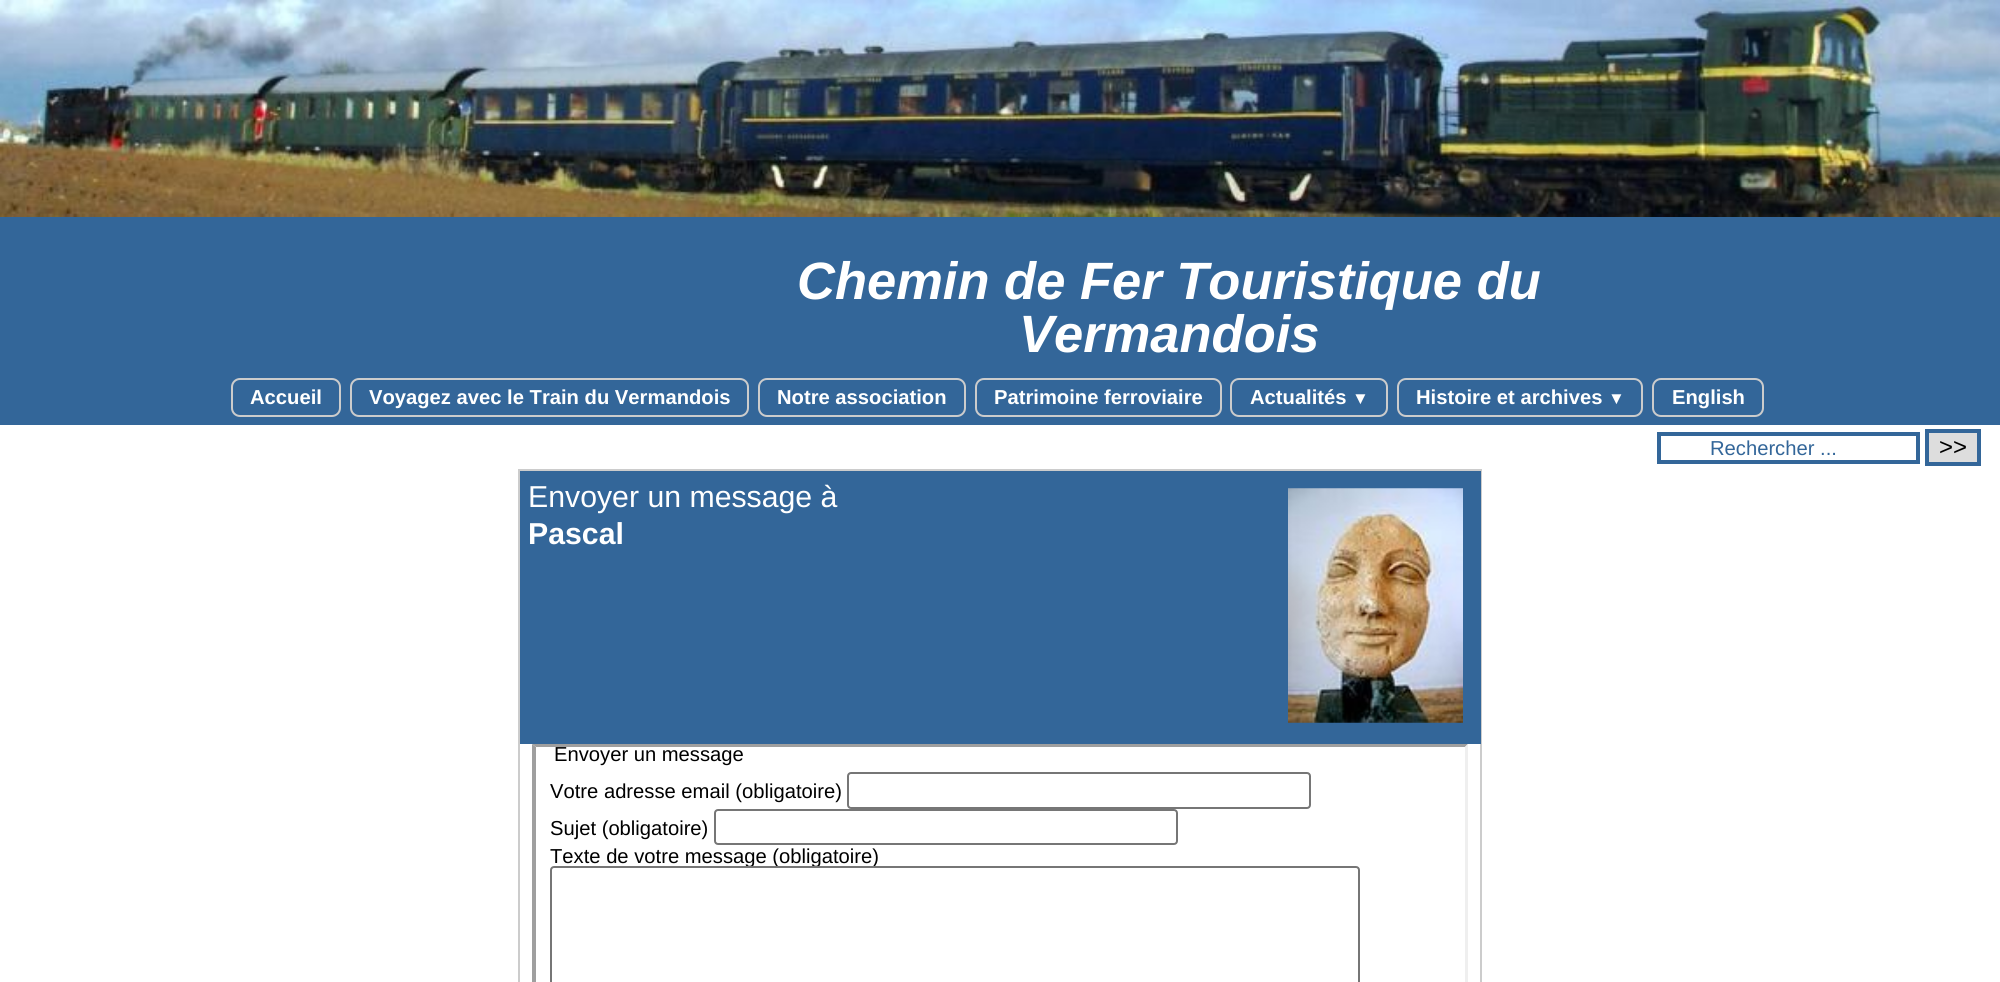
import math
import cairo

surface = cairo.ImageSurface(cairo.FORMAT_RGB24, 2000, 982)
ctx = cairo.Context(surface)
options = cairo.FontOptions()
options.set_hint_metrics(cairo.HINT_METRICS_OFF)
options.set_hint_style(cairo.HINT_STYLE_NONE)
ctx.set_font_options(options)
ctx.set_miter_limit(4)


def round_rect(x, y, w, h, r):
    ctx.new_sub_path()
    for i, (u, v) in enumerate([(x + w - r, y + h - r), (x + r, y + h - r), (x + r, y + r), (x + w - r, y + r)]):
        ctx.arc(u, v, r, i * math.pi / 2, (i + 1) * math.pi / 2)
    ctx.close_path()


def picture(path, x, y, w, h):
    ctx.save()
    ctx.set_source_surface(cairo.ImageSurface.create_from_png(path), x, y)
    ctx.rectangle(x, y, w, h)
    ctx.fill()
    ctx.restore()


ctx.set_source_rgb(1, 1, 1)
ctx.paint()
ctx.set_source_rgb(0.2, 0.4, 0.6)
ctx.rectangle(0, 217, 2000, 208)
ctx.fill()
picture("img1.png", 0, 0, 2000, 217)
ctx.select_font_face("Liberation Sans", cairo.FONT_SLANT_ITALIC, cairo.FONT_WEIGHT_BOLD)
ctx.set_font_size(52.5)
ctx.set_source_rgb(1, 1, 1)
ctx.move_to(797, 299)
ctx.show_text("Chemin de Fer Touristique du")
ctx.move_to(1019, 352)
ctx.show_text("Vermandois")
round_rect(232, 379, 108, 37, 8)
ctx.set_source_rgb(0.8, 0.8, 0.8)
ctx.stroke()
ctx.select_font_face("Liberation Sans", cairo.FONT_SLANT_NORMAL, cairo.FONT_WEIGHT_BOLD)
ctx.set_font_size(20.2)
ctx.set_source_rgb(1, 1, 1)
ctx.move_to(250, 404)
ctx.show_text("Accueil")
round_rect(351, 379, 397, 37, 8)
ctx.set_source_rgb(0.8, 0.8, 0.8)
ctx.stroke()
ctx.set_source_rgb(1, 1, 1)
ctx.move_to(369, 404)
ctx.show_text("Voyagez avec le Train du Vermandois")
round_rect(759, 379, 206, 37, 8)
ctx.set_source_rgb(0.8, 0.8, 0.8)
ctx.stroke()
ctx.set_source_rgb(1, 1, 1)
ctx.move_to(777, 404)
ctx.show_text("Notre association")
round_rect(976, 379, 245, 37, 8)
ctx.set_source_rgb(0.8, 0.8, 0.8)
ctx.stroke()
ctx.set_source_rgb(1, 1, 1)
ctx.move_to(994, 404)
ctx.show_text("Patrimoine ferroviaire")
round_rect(1231, 379, 156, 37, 8)
ctx.set_source_rgb(0.8, 0.8, 0.8)
ctx.stroke()
ctx.set_source_rgb(1, 1, 1)
ctx.move_to(1250, 404)
ctx.show_text("Actualités")
ctx.set_font_size(17)
ctx.move_to(1352, 404)
ctx.show_text("▼")
round_rect(1398, 379, 244, 37, 8)
ctx.set_source_rgb(0.8, 0.8, 0.8)
ctx.stroke()
ctx.set_font_size(20.2)
ctx.set_source_rgb(1, 1, 1)
ctx.move_to(1416, 404)
ctx.show_text("Histoire et archives")
ctx.set_font_size(17)
ctx.move_to(1608, 404)
ctx.show_text("▼")
round_rect(1653, 379, 110, 37, 8)
ctx.set_source_rgb(0.8, 0.8, 0.8)
ctx.stroke()
ctx.set_font_size(20.2)
ctx.set_source_rgb(1, 1, 1)
ctx.move_to(1672, 404)
ctx.show_text("English")
ctx.rectangle(1659, 434, 259, 28)
ctx.set_source_rgb(0.2, 0.4, 0.6)
ctx.set_line_width(4)
ctx.stroke()
ctx.select_font_face("Liberation Sans")
ctx.move_to(1710, 455)
ctx.show_text("Rechercher ...")
ctx.set_source_rgb(0.867, 0.867, 0.867)
ctx.rectangle(1927, 431, 52, 33)
ctx.fill_preserve()
ctx.set_source_rgb(0.2, 0.4, 0.6)
ctx.stroke()
ctx.set_font_size(24)
ctx.set_source_rgb(0, 0, 0)
ctx.move_to(1939, 455)
ctx.show_text(">>")
ctx.rectangle(519, 470, 962, 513)
ctx.set_source_rgb(0.8, 0.8, 0.8)
ctx.set_line_width(2)
ctx.stroke()
ctx.set_source_rgb(0.2, 0.4, 0.6)
ctx.rectangle(520, 471, 961, 273)
ctx.fill()
ctx.set_font_size(30.25)
ctx.set_source_rgb(1, 1, 1)
ctx.move_to(528, 507)
ctx.show_text("Envoyer un message à")
ctx.select_font_face("Liberation Sans", cairo.FONT_SLANT_NORMAL, cairo.FONT_WEIGHT_BOLD)
ctx.move_to(528, 544)
ctx.show_text("Pascal")
picture("img2.png", 1288, 488, 175, 235)
ctx.set_source_rgb(0.624, 0.624, 0.624)
ctx.new_path()
ctx.move_to(532, 744)
ctx.line_to(1468, 744)
ctx.line_to(1465, 747)
ctx.line_to(536, 747)
ctx.close_path()
ctx.fill()
ctx.set_source_rgb(0.937, 0.937, 0.937)
ctx.new_path()
ctx.move_to(1468, 744)
ctx.line_to(1468, 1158)
ctx.line_to(1465, 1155)
ctx.line_to(1465, 747)
ctx.close_path()
ctx.fill()
ctx.set_source_rgb(0.624, 0.624, 0.624)
ctx.new_path()
ctx.move_to(532, 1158)
ctx.line_to(532, 744)
ctx.line_to(536, 747)
ctx.line_to(536, 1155)
ctx.close_path()
ctx.fill()
ctx.select_font_face("Liberation Sans")
ctx.set_font_size(20.2)
ctx.set_source_rgb(0, 0, 0)
ctx.move_to(554, 761)
ctx.show_text("Envoyer un message")
ctx.move_to(550, 798)
ctx.show_text("Votre adresse email (obligatoire)")
round_rect(848, 773, 462, 35, 3)
ctx.set_source_rgb(0.463, 0.463, 0.463)
ctx.stroke()
ctx.set_source_rgb(0, 0, 0)
ctx.move_to(550, 835)
ctx.show_text("Sujet (obligatoire)")
round_rect(715, 810, 462, 34, 3)
ctx.set_source_rgb(0.463, 0.463, 0.463)
ctx.stroke()
ctx.set_source_rgb(0, 0, 0)
ctx.move_to(550, 863)
ctx.show_text("Texte de votre message (obligatoire)")
ctx.set_source_rgb(1, 1, 1)
round_rect(551, 867, 808, 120, 3)
ctx.fill_preserve()
ctx.set_source_rgb(0.463, 0.463, 0.463)
ctx.stroke()
surface.write_to_png("page.png")
